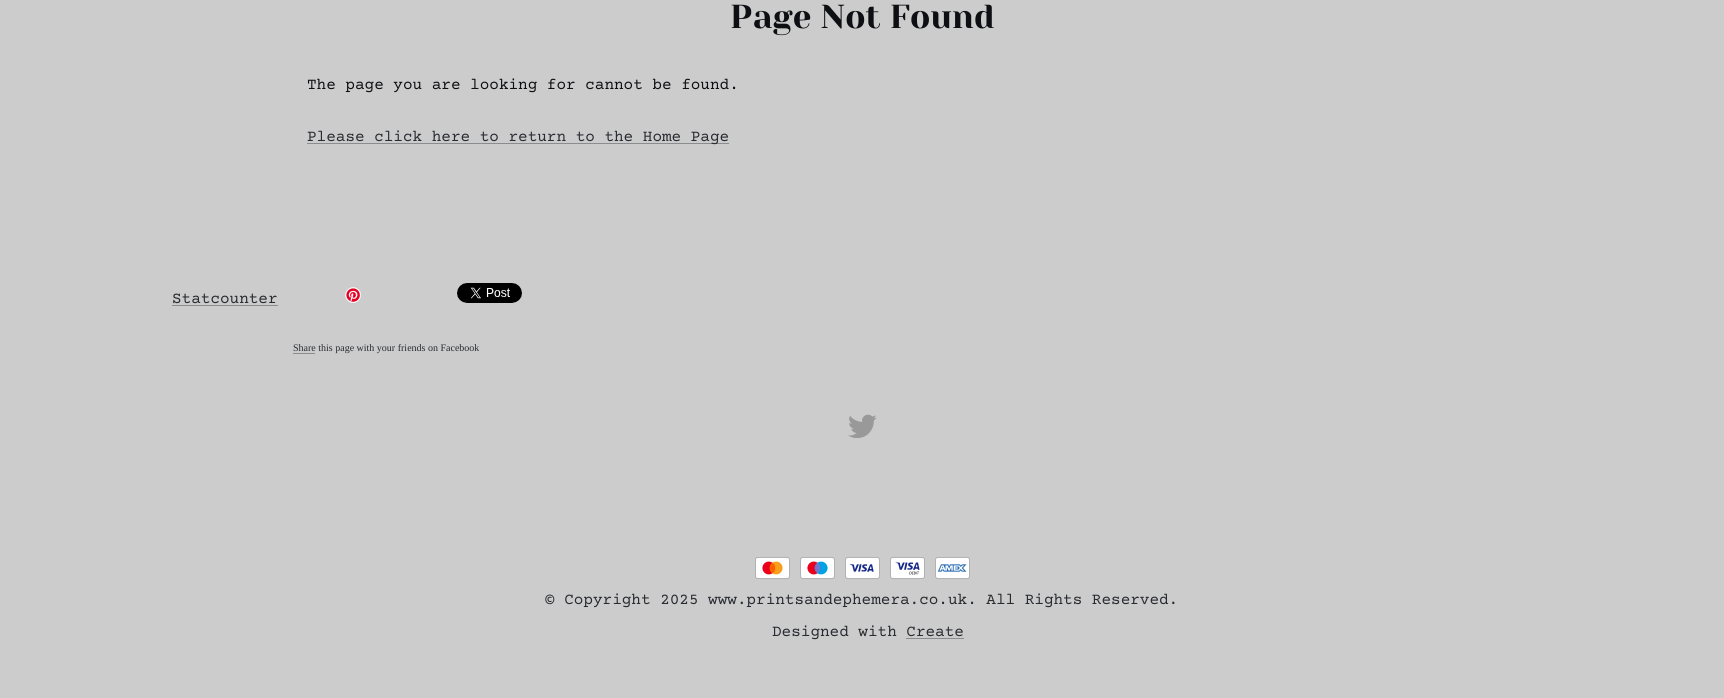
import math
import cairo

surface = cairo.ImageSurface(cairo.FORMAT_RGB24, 1724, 698)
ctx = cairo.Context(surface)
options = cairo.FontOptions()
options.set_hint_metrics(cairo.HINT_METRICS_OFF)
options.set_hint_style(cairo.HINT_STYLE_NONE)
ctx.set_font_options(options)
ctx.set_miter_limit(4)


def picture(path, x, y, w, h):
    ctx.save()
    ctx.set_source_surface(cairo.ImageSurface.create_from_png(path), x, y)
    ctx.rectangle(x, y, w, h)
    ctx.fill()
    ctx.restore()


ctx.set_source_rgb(0.8, 0.8, 0.8)
ctx.paint()
ctx.select_font_face("Yeseva One")
ctx.set_font_size(33.25)
ctx.set_source_rgb(0.055, 0.059, 0.071)
ctx.move_to(730, 28)
ctx.show_text("Page Not Found")
ctx.select_font_face("Courier Prime")
ctx.set_font_size(16)
ctx.move_to(307, 89)
ctx.show_text("The page you are looking for cannot be found.")
ctx.set_source_rgb(0.541, 0.549, 0.557)
ctx.rectangle(307, 143, 422, 1)
ctx.fill()
ctx.set_source_rgb(0.157, 0.169, 0.188)
ctx.move_to(307, 141)
ctx.show_text("Please click here to return to the Home Page")
ctx.move_to(172, 303)
ctx.show_text("Statcounter")
ctx.set_source_rgb(0.541, 0.549, 0.557)
ctx.rectangle(172, 305, 106, 1)
ctx.fill()
picture("img1.png", 345, 287, 16, 16)
picture("img2.png", 457, 283, 65, 20)
ctx.rectangle(293, 353, 22, 1)
ctx.fill()
ctx.select_font_face("Liberation Serif")
ctx.set_font_size(10)
ctx.set_source_rgb(0.157, 0.169, 0.188)
ctx.move_to(293, 351)
ctx.show_text("Share this page with your friends on Facebook")
picture("img3.png", 848, 414, 29, 24)
picture("img4.png", 755, 557, 35, 22)
picture("img5.png", 800, 557, 35, 22)
picture("img6.png", 845, 557, 35, 22)
picture("img7.png", 890, 557, 35, 22)
picture("img8.png", 935, 557, 35, 22)
ctx.select_font_face("Courier Prime")
ctx.set_font_size(16)
ctx.move_to(545, 604)
ctx.show_text("© Copyright 2025 www.printsandephemera.co.uk. All Rights Reserved.")
ctx.move_to(772, 636)
ctx.show_text("Designed with Create")
ctx.set_source_rgb(0.541, 0.549, 0.557)
ctx.rectangle(906, 638, 58, 1)
ctx.fill()
surface.write_to_png("page.png")
